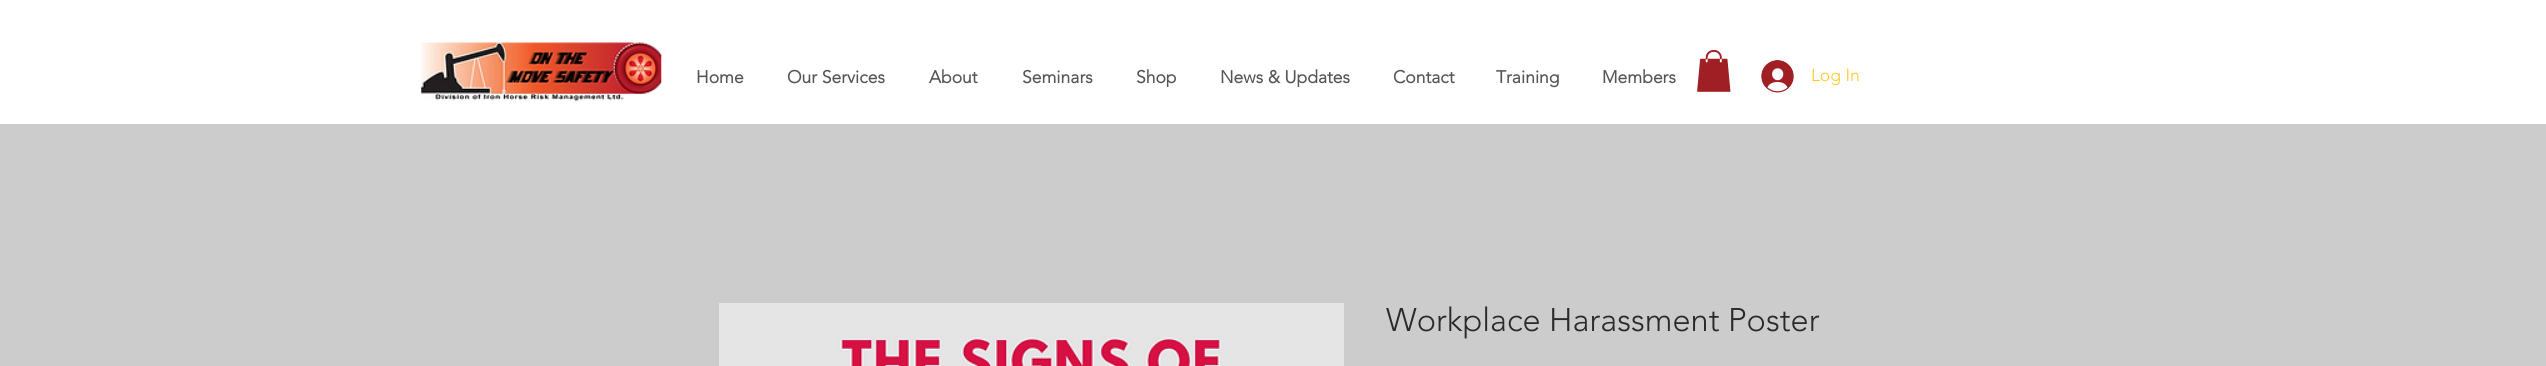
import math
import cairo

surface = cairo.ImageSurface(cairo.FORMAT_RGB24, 2546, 366)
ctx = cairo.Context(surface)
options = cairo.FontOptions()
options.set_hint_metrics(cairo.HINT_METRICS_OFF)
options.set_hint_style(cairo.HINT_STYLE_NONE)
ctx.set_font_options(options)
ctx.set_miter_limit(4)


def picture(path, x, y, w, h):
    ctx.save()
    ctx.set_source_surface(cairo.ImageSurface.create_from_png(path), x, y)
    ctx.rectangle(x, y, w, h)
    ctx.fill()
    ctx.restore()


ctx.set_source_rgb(0.8, 0.8, 0.8)
ctx.paint()
ctx.set_source_rgb(1, 1, 1)
ctx.rectangle(0, 0, 2546, 124)
ctx.fill()
picture("img1.png", 421, 42, 241, 60)
ctx.select_font_face("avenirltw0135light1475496", cairo.FONT_SLANT_NORMAL, cairo.FONT_WEIGHT_BOLD)
ctx.set_font_size(17.5)
ctx.set_source_rgb(0.333, 0.333, 0.333)
ctx.move_to(696, 83)
ctx.show_text("Home")
ctx.move_to(787, 83)
ctx.show_text("Our Services")
ctx.move_to(929, 83)
ctx.show_text("About")
ctx.move_to(1022, 83)
ctx.show_text("Seminars")
ctx.move_to(1136, 83)
ctx.show_text("Shop")
ctx.move_to(1220, 83)
ctx.show_text("News & Updates")
ctx.move_to(1393, 83)
ctx.show_text("Contact")
ctx.move_to(1496, 83)
ctx.show_text("Training")
ctx.move_to(1602, 83)
ctx.show_text("Members")
picture("img2.png", 1697, 50, 34, 42)
picture("img3.png", 1761, 60, 33, 33)
ctx.select_font_face("avenirltw0135light1475496 Light")
ctx.set_source_rgb(1, 0.784, 0.141)
ctx.move_to(1811, 81)
ctx.show_text("Log In")
picture("img4.png", 719, 303, 625, 63)
ctx.set_font_size(32.5)
ctx.set_source_rgb(0.165, 0.165, 0.165)
ctx.move_to(1386, 331)
ctx.show_text("Workplace Harassment Poster")
surface.write_to_png("page.png")
